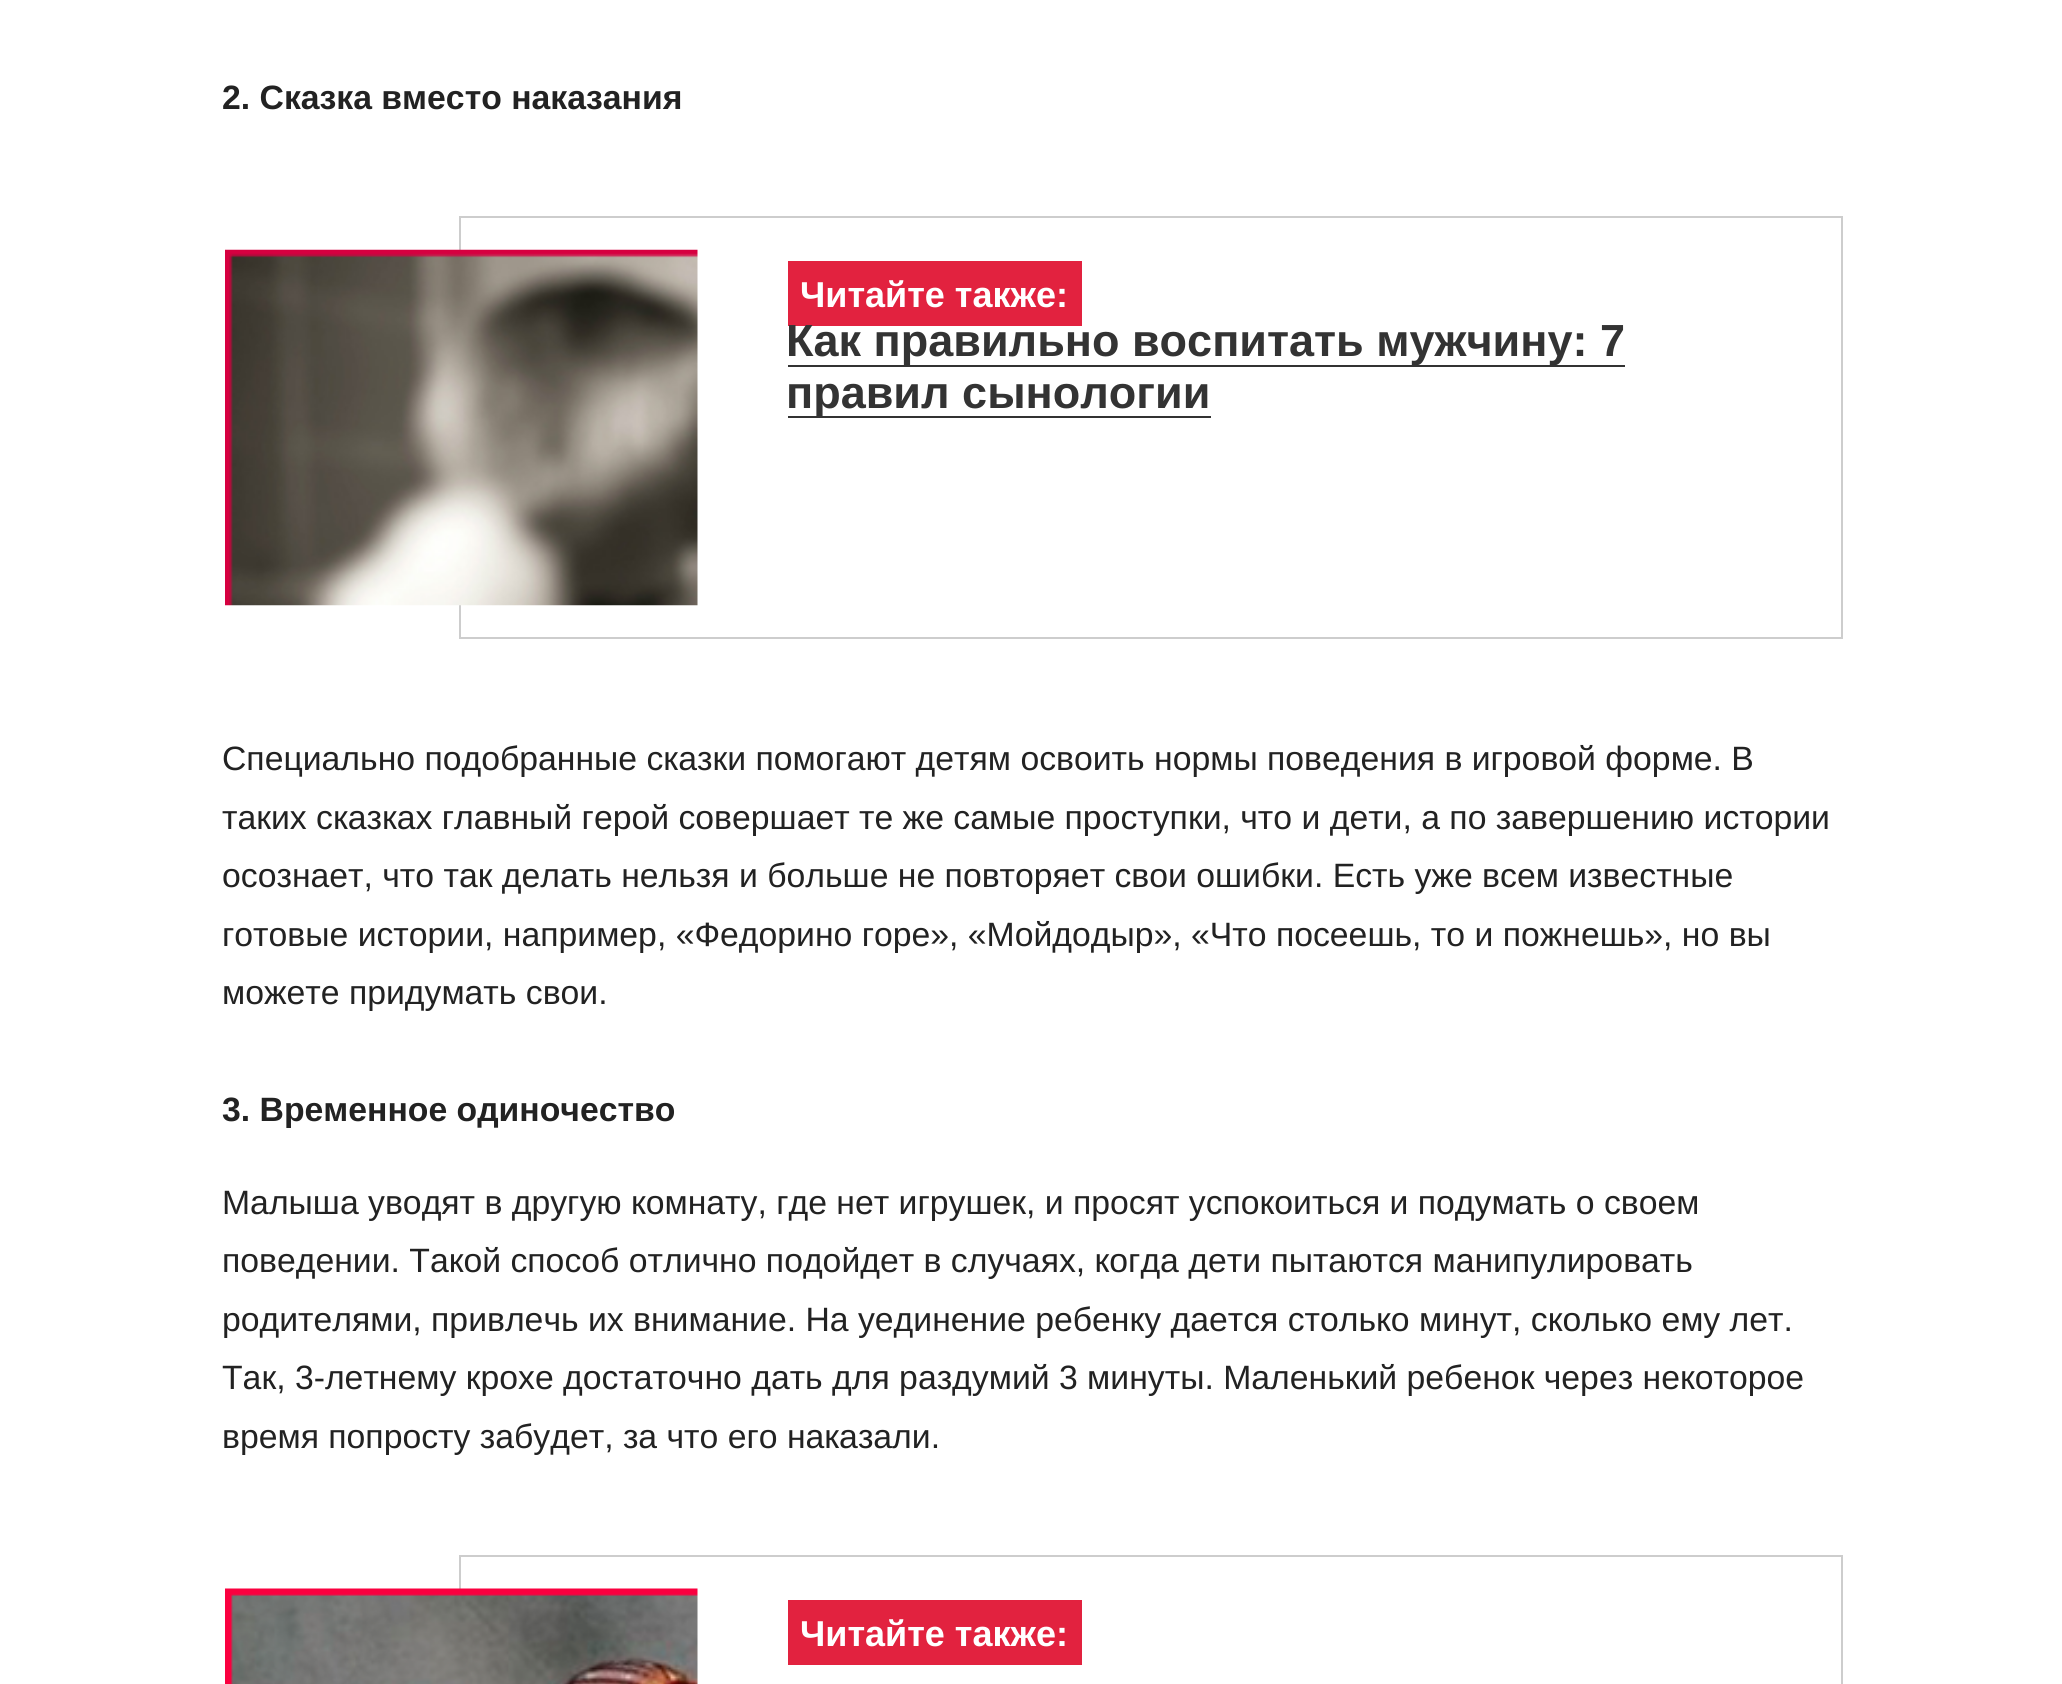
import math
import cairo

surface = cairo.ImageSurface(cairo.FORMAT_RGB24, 2062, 1684)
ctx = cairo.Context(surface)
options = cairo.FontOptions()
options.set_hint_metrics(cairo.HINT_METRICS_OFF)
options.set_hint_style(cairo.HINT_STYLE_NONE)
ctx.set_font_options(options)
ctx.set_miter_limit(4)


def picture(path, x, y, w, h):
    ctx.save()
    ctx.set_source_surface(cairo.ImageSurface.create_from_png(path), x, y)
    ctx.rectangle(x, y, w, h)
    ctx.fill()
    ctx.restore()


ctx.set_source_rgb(1, 1, 1)
ctx.paint()
ctx.select_font_face("Liberation Sans", cairo.FONT_SLANT_NORMAL, cairo.FONT_WEIGHT_BOLD)
ctx.set_font_size(33.75)
ctx.set_source_rgb(0.133, 0.133, 0.133)
ctx.move_to(222, 109)
ctx.show_text("2. Сказка вместо наказания")
ctx.rectangle(460, 217, 1382, 421)
ctx.set_source_rgb(0.804, 0.804, 0.804)
ctx.stroke()
picture("img1.png", 225, 249, 473, 357)
ctx.set_source_rgb(0.886, 0.133, 0.247)
ctx.rectangle(788, 261, 294, 65)
ctx.fill()
ctx.set_font_size(36)
ctx.set_source_rgb(1, 1, 1)
ctx.move_to(800, 307)
ctx.show_text("Читайте также:")
ctx.set_source_rgb(0.2, 0.2, 0.2)
ctx.rectangle(788, 365, 837, 2)
ctx.fill()
ctx.set_font_size(45)
ctx.move_to(786, 356)
ctx.show_text("Как правильно воспитать мужчину: 7")
ctx.rectangle(788, 416, 423, 2)
ctx.fill()
ctx.move_to(786, 408)
ctx.show_text("правил сынологии")
ctx.select_font_face("Liberation Sans")
ctx.set_font_size(33.75)
ctx.set_source_rgb(0.133, 0.133, 0.133)
ctx.move_to(222, 770)
ctx.show_text("Специально подобранные сказки помогают детям освоить нормы поведения в игровой форме. В")
ctx.move_to(222, 829)
ctx.show_text("таких сказках главный герой совершает те же самые проступки, что и дети, а по завершению истории")
ctx.move_to(222, 887)
ctx.show_text("осознает, что так делать нельзя и больше не повторяет свои ошибки. Есть уже всем известные")
ctx.move_to(222, 946)
ctx.show_text("готовые истории, например, «Федорино горе», «Мойдодыр», «Что посеешь, то и пожнешь», но вы")
ctx.move_to(222, 1004)
ctx.show_text("можете придумать свои.")
ctx.select_font_face("Liberation Sans", cairo.FONT_SLANT_NORMAL, cairo.FONT_WEIGHT_BOLD)
ctx.move_to(222, 1121)
ctx.show_text("3. Временное одиночество")
ctx.select_font_face("Liberation Sans")
ctx.move_to(222, 1214)
ctx.show_text("Малыша уводят в другую комнату, где нет игрушек, и просят успокоиться и подумать о своем")
ctx.move_to(222, 1272)
ctx.show_text("поведении. Такой способ отлично подойдет в случаях, когда дети пытаются манипулировать")
ctx.move_to(222, 1331)
ctx.show_text("родителями, привлечь их внимание. На уединение ребенку дается столько минут, сколько ему лет.")
ctx.move_to(222, 1389)
ctx.show_text("Так, 3-летнему крохе достаточно дать для раздумий 3 минуты. Маленький ребенок через некоторое")
ctx.move_to(222, 1448)
ctx.show_text("время попросту забудет, за что его наказали.")
ctx.rectangle(460, 1556, 1382, 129)
ctx.set_source_rgb(0.804, 0.804, 0.804)
ctx.stroke()
picture("img2.png", 225, 1588, 473, 96)
ctx.set_source_rgb(0.886, 0.133, 0.247)
ctx.rectangle(788, 1600, 294, 65)
ctx.fill()
ctx.select_font_face("Liberation Sans", cairo.FONT_SLANT_NORMAL, cairo.FONT_WEIGHT_BOLD)
ctx.set_font_size(36)
ctx.set_source_rgb(1, 1, 1)
ctx.move_to(800, 1646)
ctx.show_text("Читайте также:")
surface.write_to_png("page.png")
